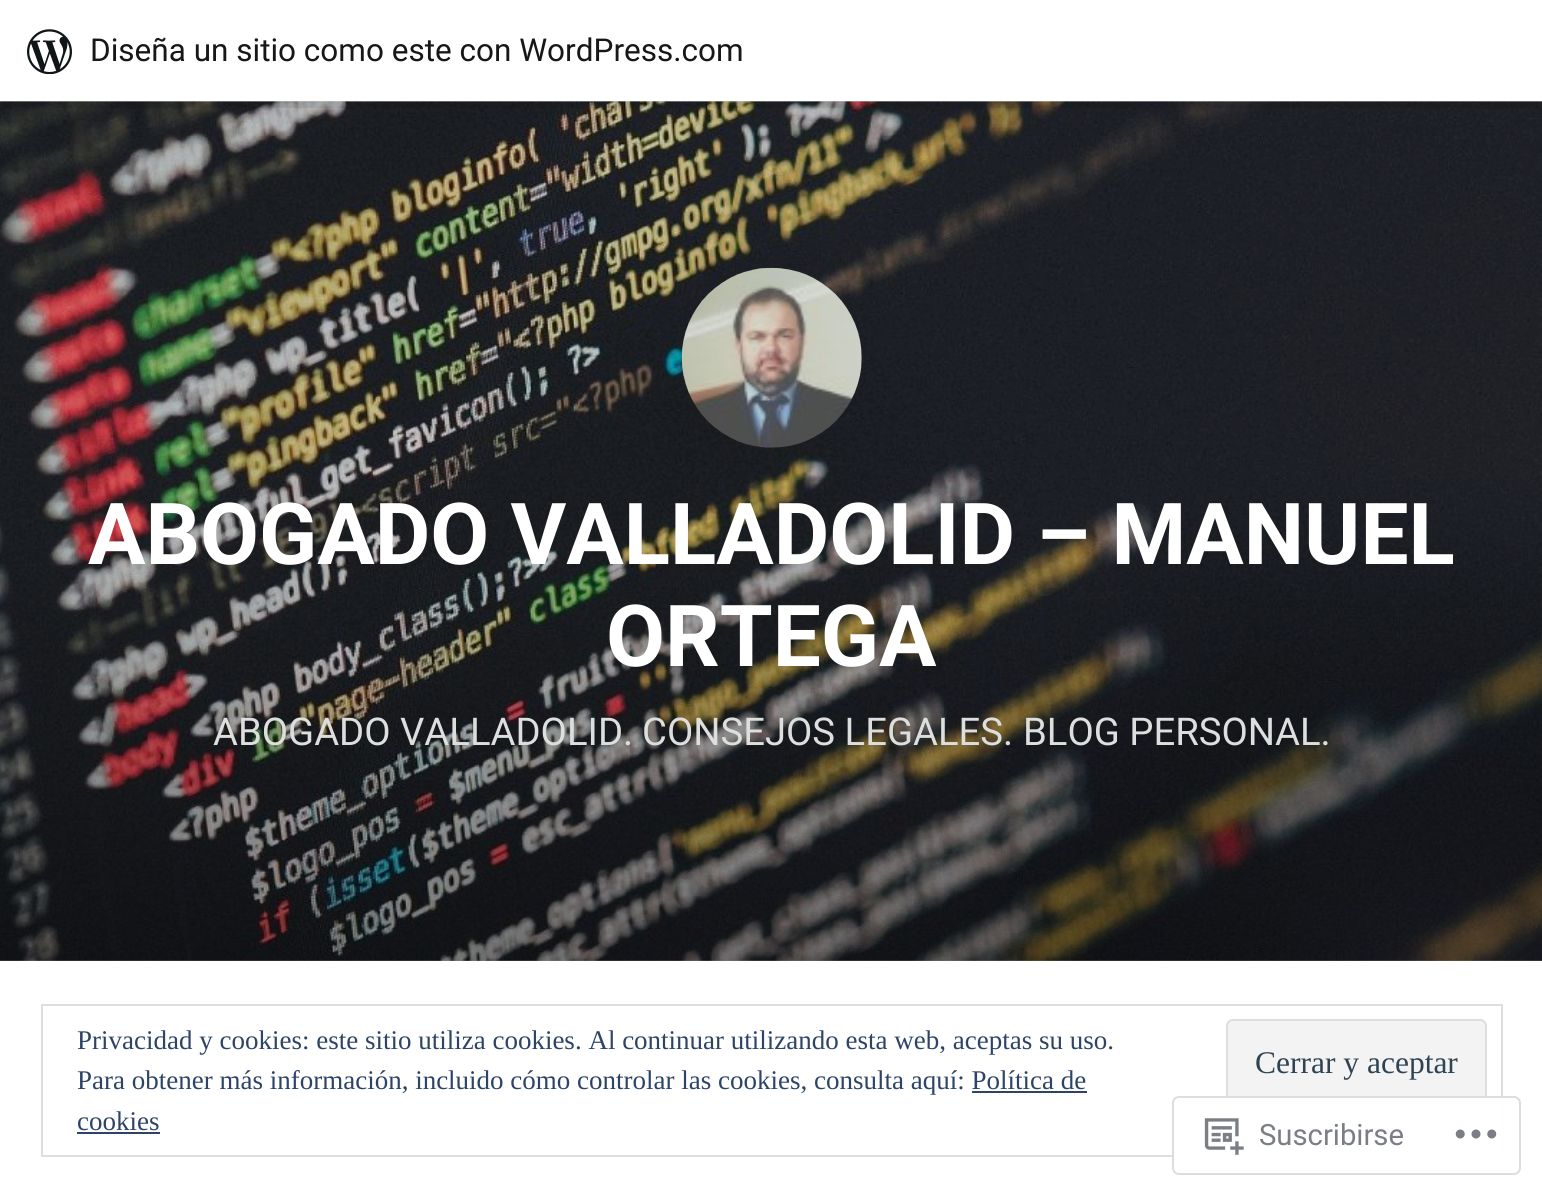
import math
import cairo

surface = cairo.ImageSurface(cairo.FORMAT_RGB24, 1542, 1195)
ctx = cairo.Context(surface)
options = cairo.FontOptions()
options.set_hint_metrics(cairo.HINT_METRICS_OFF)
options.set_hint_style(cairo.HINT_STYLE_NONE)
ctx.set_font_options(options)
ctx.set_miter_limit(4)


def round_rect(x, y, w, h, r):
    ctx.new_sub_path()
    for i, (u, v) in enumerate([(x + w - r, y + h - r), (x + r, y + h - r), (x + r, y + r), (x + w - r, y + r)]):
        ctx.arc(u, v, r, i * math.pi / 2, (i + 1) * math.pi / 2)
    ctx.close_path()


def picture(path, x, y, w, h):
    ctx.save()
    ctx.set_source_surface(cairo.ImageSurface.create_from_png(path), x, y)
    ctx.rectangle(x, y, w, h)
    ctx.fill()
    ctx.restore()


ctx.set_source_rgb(1, 1, 1)
ctx.paint()
picture("img2.png", 0, 101, 1542, 860)
gradient = cairo.LinearGradient(772, 101, 772, 961)
gradient.add_color_stop_rgba(0.5, 0, 0, 0, 0.15)
gradient.add_color_stop_rgba(1, 0, 0, 0, 0.45)
ctx.set_source(gradient)
ctx.rectangle(0, 101, 1542, 860)
ctx.fill()
ctx.set_source_rgba(0, 0, 0, 0.08)
ctx.new_path()
ctx.move_to(2, 101)
ctx.line_to(2, 108)
ctx.line_to(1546, 108)
ctx.line_to(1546, 7)
ctx.line_to(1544, 7)
ctx.line_to(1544, 101)
ctx.close_path()
ctx.fill()
picture("img1.png", 27, 29, 45, 45)
ctx.select_font_face("Roboto")
ctx.set_font_size(31.5)
ctx.set_source_rgb(0.09, 0.09, 0.09)
ctx.move_to(90, 61)
ctx.show_text("Diseña un sitio como este con WordPress.com")
picture("img3.png", 681, 267, 181, 181)
ctx.select_font_face("Roboto", cairo.FONT_SLANT_NORMAL, cairo.FONT_WEIGHT_BOLD)
ctx.set_font_size(85.5)
ctx.set_source_rgb(1, 1, 1)
ctx.move_to(88, 564)
ctx.show_text("ABOGADO VALLADOLID – MANUEL")
ctx.move_to(606, 666)
ctx.show_text("ORTEGA")
ctx.select_font_face("Roboto")
ctx.set_font_size(38.25)
ctx.set_source_rgb(0.867, 0.871, 0.871)
ctx.move_to(213, 745)
ctx.show_text("ABOGADO VALLADOLID.")
ctx.move_to(642, 745)
ctx.show_text("CONSEJOS LEGALES.")
ctx.move_to(1023, 745)
ctx.show_text("BLOG PERSONAL.")
ctx.rectangle(42, 1005, 1460, 151)
ctx.set_source_rgb(0.871, 0.871, 0.871)
ctx.stroke()
ctx.select_font_face("Liberation Serif")
ctx.set_font_size(27)
ctx.set_source_rgb(0.18, 0.267, 0.404)
ctx.move_to(77, 1049)
ctx.show_text("Privacidad y cookies: este sitio utiliza cookies. Al continuar utilizando esta web, aceptas su uso.")
ctx.set_source_rgb(0.953, 0.953, 0.953)
round_rect(1227, 1020, 259, 86, 6)
ctx.fill_preserve()
ctx.set_source_rgb(0.871, 0.871, 0.871)
ctx.stroke()
ctx.set_font_size(31.5)
ctx.set_source_rgb(0.18, 0.267, 0.325)
ctx.move_to(1255, 1073)
ctx.show_text("Cerrar y aceptar")
ctx.set_font_size(27)
ctx.set_source_rgb(0.18, 0.267, 0.404)
ctx.move_to(77, 1089)
ctx.show_text("Para obtener más información, incluido cómo controlar las cookies, consulta aquí: Política de")
ctx.move_to(77, 1130)
ctx.show_text("cookies")
ctx.rectangle(972, 1091, 115, 2)
ctx.fill()
ctx.rectangle(77, 1132, 83, 2)
ctx.fill()
ctx.set_source_rgba(1, 1, 1, 0.98)
round_rect(1173, 1097, 347, 77, 6)
ctx.fill_preserve()
ctx.set_source_rgb(0.867, 0.867, 0.875)
ctx.stroke()
picture("img4.png", 1204, 1118, 40, 37)
ctx.select_font_face("Roboto")
ctx.set_font_size(29.25)
ctx.set_source_rgb(0.482, 0.498, 0.522)
ctx.move_to(1259, 1145)
ctx.show_text("Suscribirse")
picture("img5.png", 1455, 1129, 42, 10)
surface.write_to_png("page.png")
